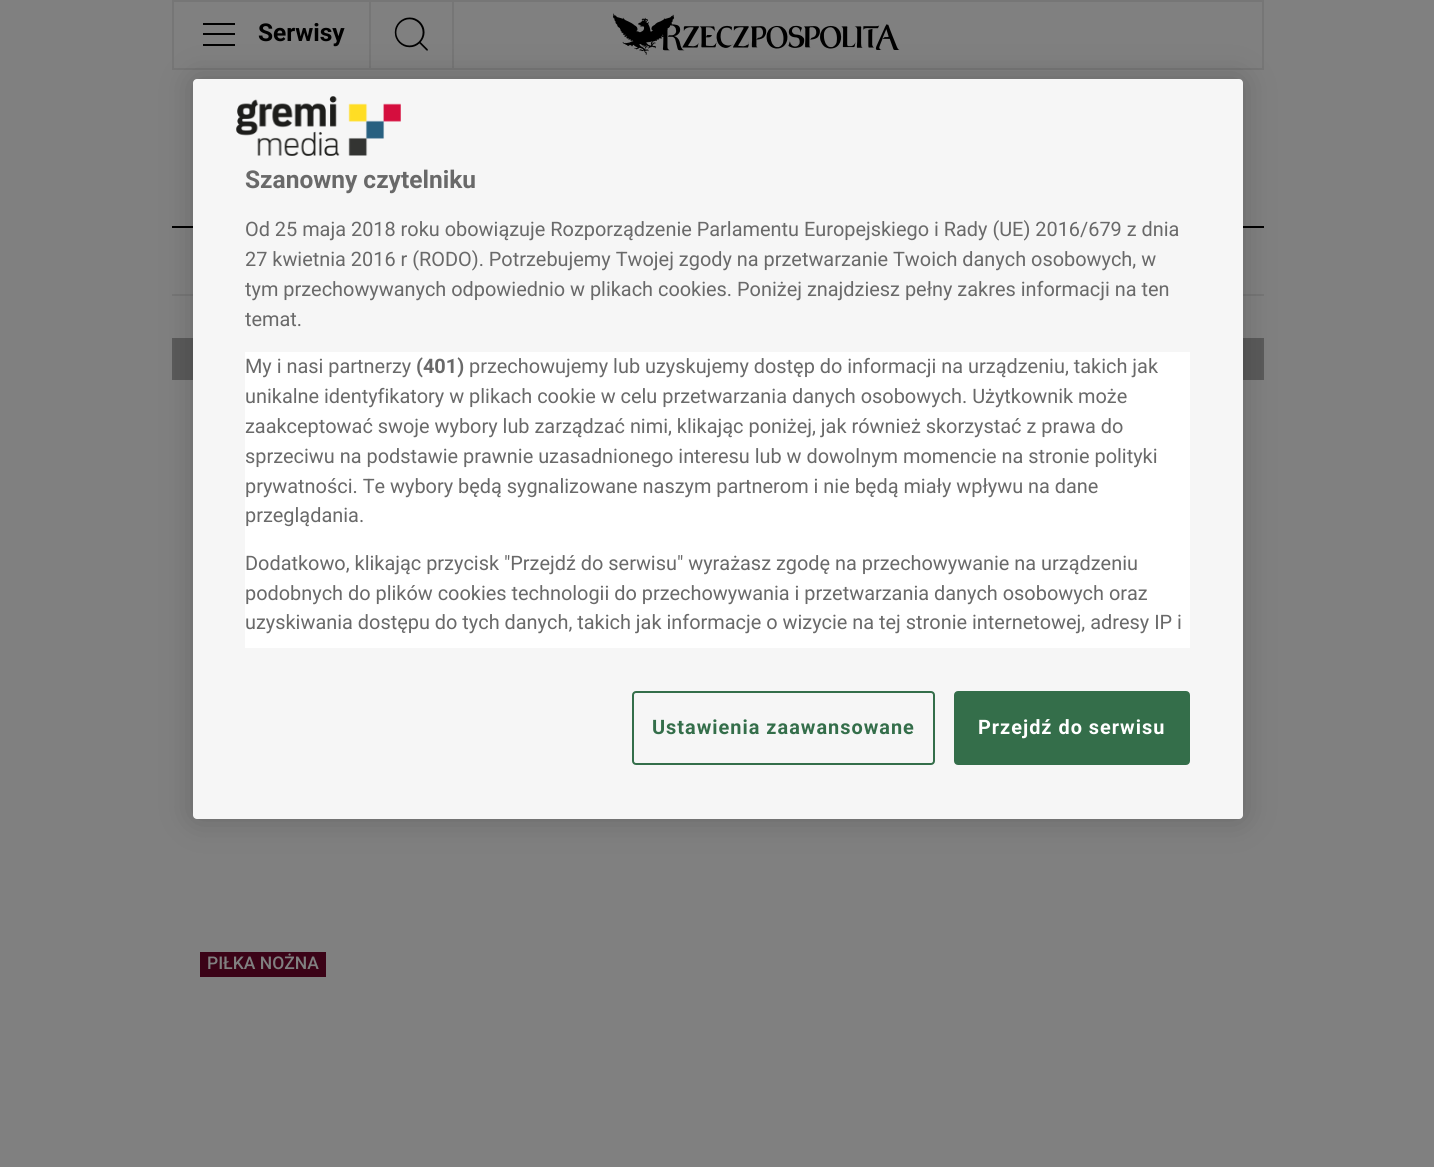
import math
import cairo

surface = cairo.ImageSurface(cairo.FORMAT_RGB24, 1434, 1167)
ctx = cairo.Context(surface)
options = cairo.FontOptions()
options.set_hint_metrics(cairo.HINT_METRICS_OFF)
options.set_hint_style(cairo.HINT_STYLE_NONE)
ctx.set_font_options(options)
ctx.set_miter_limit(4)


def spaced_text(x, y, s, letter, word):
    ctx.move_to(x, y)
    for ch in s:
        ctx.show_text(ch)
        ctx.rel_move_to(letter + word * (ch == ' '), 0)


def round_rect(x, y, w, h, r):
    ctx.new_sub_path()
    for i, (u, v) in enumerate([(x + w - r, y + h - r), (x + r, y + h - r), (x + r, y + r), (x + w - r, y + r)]):
        ctx.arc(u, v, r, i * math.pi / 2, (i + 1) * math.pi / 2)
    ctx.close_path()


def shadow(x, y, w, h, r, blur, alpha):
    ctx.push_group_with_content(cairo.CONTENT_ALPHA)
    ctx.set_operator(cairo.OPERATOR_SOURCE)
    for i in range(15, -16, -2):
        e = blur * i / 6
        if min(w, h) + 2 * e > 0:
            ctx.set_source_rgba(0, 0, 0, alpha * math.erfc((i - 1) / 8.5) / 2)
            round_rect(x - e, y - e, w + 2 * e, h + 2 * e, max(0, min(r + e + blur * .6, min(w, h) / 2 + e)))
            ctx.fill()
    ctx.mask(ctx.pop_group())


def picture(path, x, y, w, h):
    ctx.save()
    ctx.set_source_surface(cairo.ImageSurface.create_from_png(path), x, y)
    ctx.rectangle(x, y, w, h)
    ctx.fill()
    ctx.restore()


ctx.set_source_rgb(0.502, 0.502, 0.502)
ctx.paint()
ctx.set_source_rgb(0.463, 0.463, 0.463)
ctx.rectangle(172, 0, 1092, 2)
ctx.fill()
ctx.rectangle(172, 68, 1092, 2)
ctx.fill()
ctx.rectangle(1262, 2, 2, 66)
ctx.fill()
ctx.rectangle(369, 2, 2, 66)
ctx.fill()
ctx.rectangle(172, 2, 2, 66)
ctx.fill()
ctx.set_source_rgb(0, 0, 0)
ctx.rectangle(203, 23, 32, 2)
ctx.fill()
ctx.rectangle(203, 33, 32, 2)
ctx.fill()
ctx.rectangle(203, 44, 32, 2)
ctx.fill()
ctx.select_font_face("Roboto", cairo.FONT_SLANT_NORMAL, cairo.FONT_WEIGHT_BOLD)
ctx.set_font_size(24.5)
ctx.move_to(258, 41)
ctx.show_text("Serwisy")
ctx.set_source_rgb(0.463, 0.463, 0.463)
ctx.rectangle(452, 2, 2, 66)
ctx.fill()
picture("img1.png", 394, 17, 34, 34)
picture("img2.png", 613, 13, 287, 42)
ctx.set_source_rgb(0, 0, 0)
ctx.rectangle(172, 226, 1092, 2)
ctx.fill()
ctx.set_source_rgb(0.463, 0.463, 0.463)
ctx.rectangle(172, 294, 1092, 2)
ctx.fill()
ctx.set_source_rgb(0.353, 0.353, 0.353)
ctx.rectangle(172, 338, 1092, 42)
ctx.fill()
ctx.set_source_rgb(0, 0, 0)
shadow(193, 79, 1050, 740, 4, 16, 0.2)
ctx.set_source_rgb(0.961, 0.961, 0.961)
round_rect(193, 79, 1050, 740, 4)
ctx.fill()
picture("img3.png", 236, 96, 165, 60)
ctx.set_source_rgb(0.412, 0.412, 0.412)
ctx.move_to(245, 188)
ctx.show_text("Szanowny czytelniku")
ctx.select_font_face("Roboto")
ctx.set_font_size(19.9)
ctx.move_to(245, 236)
ctx.show_text("Od 25 maja 2018 roku obowiązuje Rozporządzenie Parlamentu Europejskiego i Rady (UE) 2016/679 z dnia")
ctx.move_to(245, 266)
ctx.show_text("27 kwietnia 2016 r (RODO). Potrzebujemy Twojej zgody na przetwarzanie Twoich danych osobowych, w")
ctx.move_to(245, 296)
ctx.show_text("tym przechowywanych odpowiednio w plikach cookies. Poniżej znajdziesz pełny zakres informacji na ten")
ctx.move_to(245, 326)
ctx.show_text("temat.")
ctx.set_source_rgb(1, 1, 1)
ctx.rectangle(245, 352, 945, 296)
ctx.fill()
ctx.set_source_rgb(0.412, 0.412, 0.412)
ctx.move_to(245, 373)
ctx.show_text("My i nasi partnerzy")
ctx.select_font_face("Roboto", cairo.FONT_SLANT_NORMAL, cairo.FONT_WEIGHT_BOLD)
ctx.move_to(416, 373)
ctx.show_text("(401)")
ctx.select_font_face("Roboto")
ctx.move_to(469, 373)
ctx.show_text("przechowujemy lub uzyskujemy dostęp do informacji na urządzeniu, takich jak")
ctx.move_to(245, 403)
ctx.show_text("unikalne identyfikatory w plikach cookie w celu przetwarzania danych osobowych. Użytkownik może")
ctx.move_to(245, 433)
ctx.show_text("zaakceptować swoje wybory lub zarządzać nimi, klikając poniżej, jak również skorzystać z prawa do")
ctx.move_to(245, 463)
ctx.show_text("sprzeciwu na podstawie prawnie uzasadnionego interesu lub w dowolnym momencie na stronie polityki")
ctx.move_to(245, 493)
ctx.show_text("prywatności. Te wybory będą sygnalizowane naszym partnerom i nie będą miały wpływu na dane")
ctx.move_to(245, 522)
ctx.show_text("przeglądania.")
ctx.move_to(245, 570)
ctx.show_text("Dodatkowo, klikając przycisk \"Przejdź do serwisu\" wyrażasz zgodę na przechowywanie na urządzeniu")
ctx.move_to(245, 600)
ctx.show_text("podobnych do plików cookies technologii do przechowywania i przetwarzania danych osobowych oraz")
ctx.move_to(245, 629)
ctx.show_text("uzyskiwania dostępu do tych danych, takich jak informacje o wizycie na tej stronie internetowej, adresy IP i")
round_rect(633, 692, 301, 72, 3)
ctx.set_source_rgb(0.204, 0.431, 0.29)
ctx.stroke()
ctx.select_font_face("Roboto", cairo.FONT_SLANT_NORMAL, cairo.FONT_WEIGHT_BOLD)
spaced_text(652, 734, "Ustawienia zaawansowane", 1, 0)
round_rect(955, 692, 234, 72, 3)
ctx.fill_preserve()
ctx.stroke()
ctx.set_source_rgb(1, 1, 1)
spaced_text(978, 734, "Przejdź do serwisu", 1, 0)
ctx.set_source_rgb(0.231, 0.012, 0.09)
ctx.rectangle(200, 952, 126, 25)
ctx.fill()
ctx.select_font_face("Roboto Medium")
ctx.set_font_size(17.5)
ctx.set_source_rgb(0.502, 0.502, 0.502)
ctx.move_to(207, 969)
ctx.show_text("PIŁKA NOŻNA")
surface.write_to_png("page.png")
